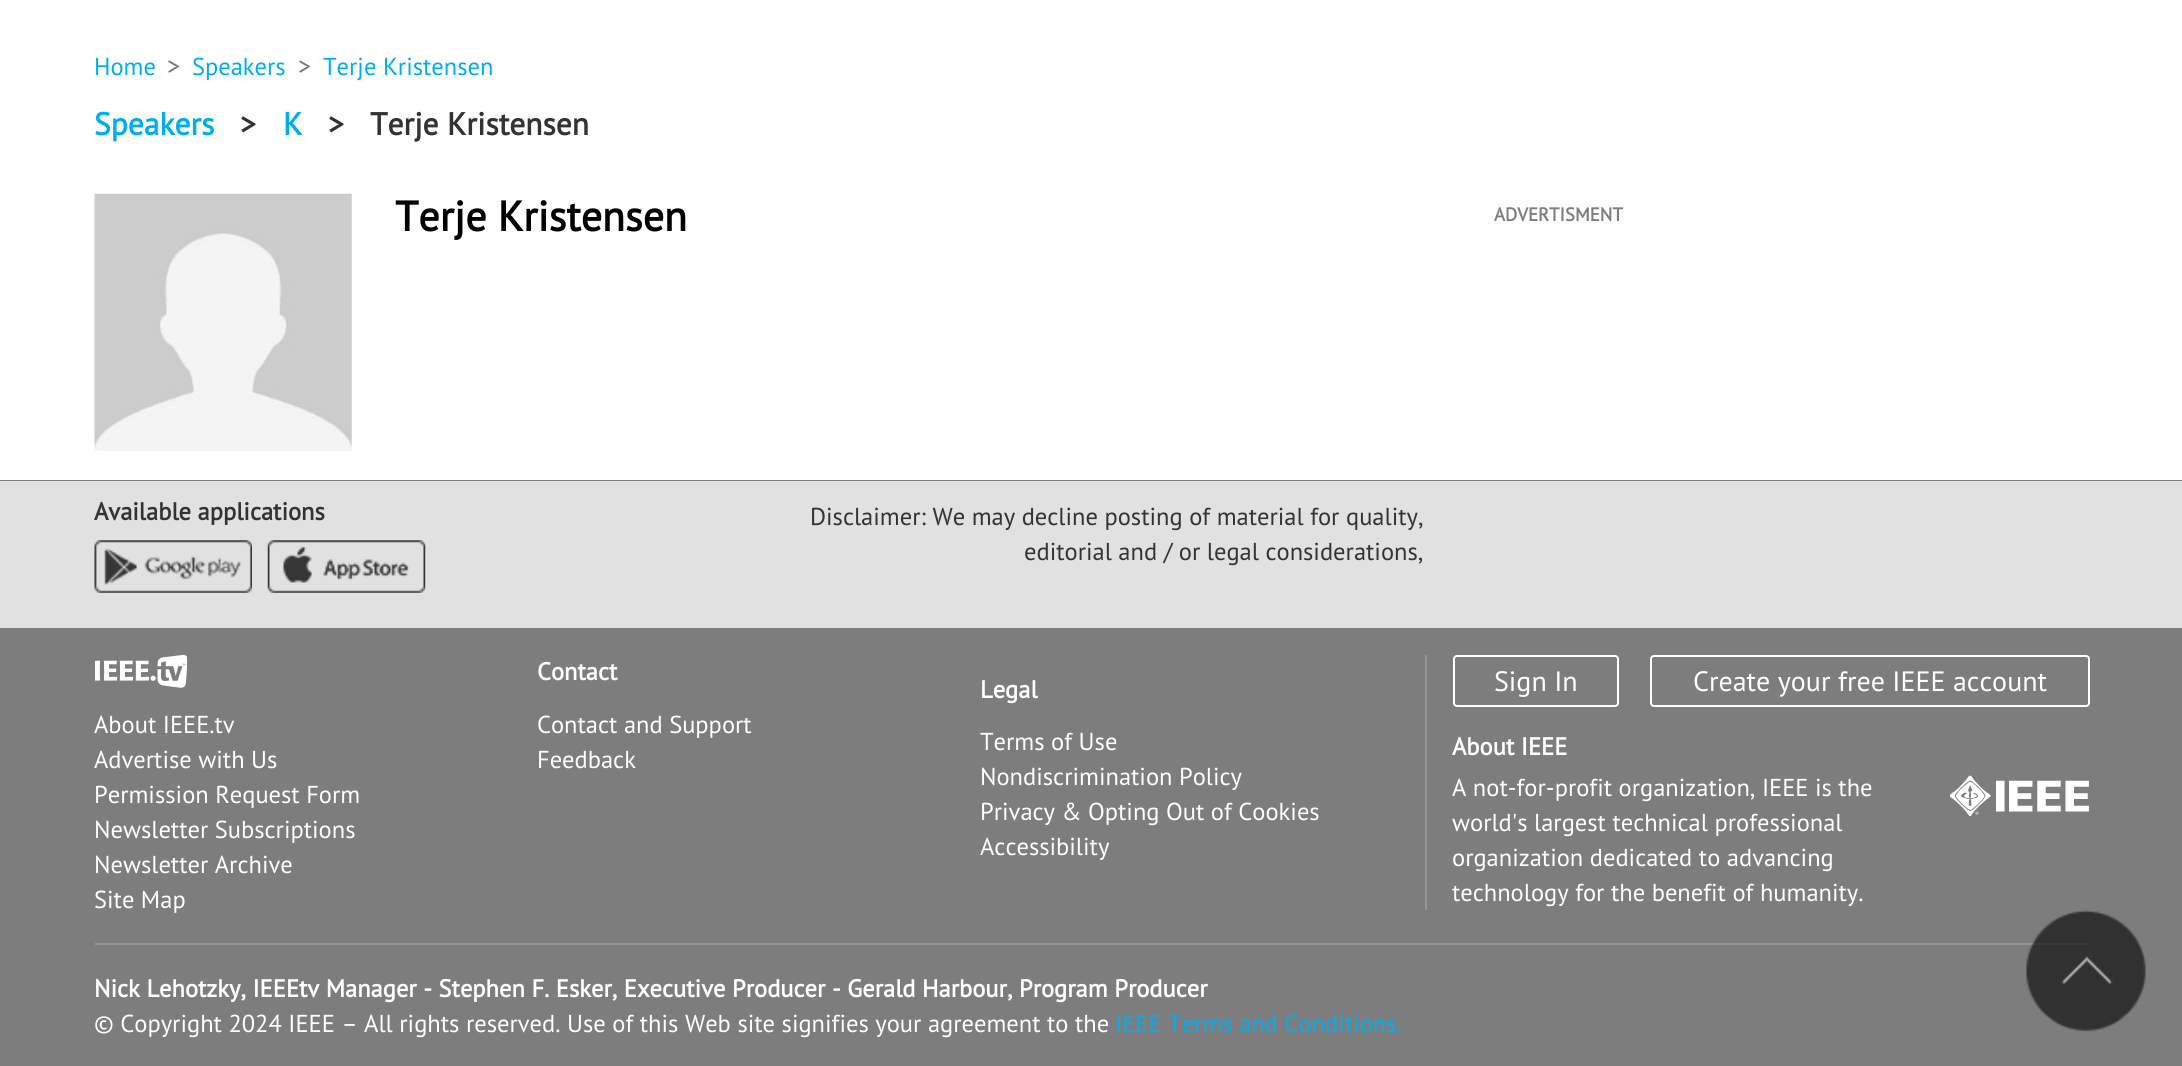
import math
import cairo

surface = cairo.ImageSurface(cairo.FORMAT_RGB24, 2182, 1066)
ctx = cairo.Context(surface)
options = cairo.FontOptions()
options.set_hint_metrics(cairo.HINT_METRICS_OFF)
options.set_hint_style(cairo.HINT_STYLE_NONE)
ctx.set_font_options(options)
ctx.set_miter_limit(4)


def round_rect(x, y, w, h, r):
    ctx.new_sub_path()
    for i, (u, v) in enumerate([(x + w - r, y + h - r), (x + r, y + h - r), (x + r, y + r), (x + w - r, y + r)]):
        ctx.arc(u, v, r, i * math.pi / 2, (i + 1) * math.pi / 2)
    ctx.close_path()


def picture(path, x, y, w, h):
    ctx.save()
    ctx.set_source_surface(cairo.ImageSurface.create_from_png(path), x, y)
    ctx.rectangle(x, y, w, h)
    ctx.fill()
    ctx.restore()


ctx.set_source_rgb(1, 1, 1)
ctx.paint()
ctx.select_font_face("PT Sans")
ctx.set_font_size(24.5)
ctx.set_source_rgb(0, 0.678, 0.937)
ctx.move_to(94, 75)
ctx.show_text("Home")
ctx.set_font_size(26)
ctx.set_source_rgb(0.467, 0.467, 0.467)
ctx.move_to(167, 75)
ctx.show_text(">")
ctx.set_font_size(24.5)
ctx.set_source_rgb(0, 0.678, 0.937)
ctx.move_to(192, 75)
ctx.show_text("Speakers")
ctx.set_font_size(26)
ctx.set_source_rgb(0.467, 0.467, 0.467)
ctx.move_to(298, 75)
ctx.show_text(">")
ctx.set_font_size(24.5)
ctx.set_source_rgb(0, 0.678, 0.937)
ctx.move_to(323, 75)
ctx.show_text("Terje Kristensen")
ctx.select_font_face("PT Sans", cairo.FONT_SLANT_NORMAL, cairo.FONT_WEIGHT_BOLD)
ctx.set_font_size(31.5)
ctx.move_to(94, 135)
ctx.show_text("Speakers")
ctx.set_source_rgb(0.2, 0.2, 0.2)
ctx.move_to(240, 135)
ctx.show_text(">")
ctx.set_source_rgb(0, 0.678, 0.937)
ctx.move_to(283, 135)
ctx.show_text("K")
ctx.set_source_rgb(0.2, 0.2, 0.2)
ctx.move_to(328, 135)
ctx.show_text(">")
ctx.move_to(370, 135)
ctx.show_text("Terje Kristensen")
picture("img1.png", 94, 193, 258, 258)
ctx.set_font_size(42)
ctx.set_source_rgb(0, 0, 0)
ctx.move_to(395, 231)
ctx.show_text("Terje Kristensen")
ctx.set_font_size(18.75)
ctx.set_source_rgb(0.49, 0.49, 0.49)
ctx.move_to(1494, 221)
ctx.show_text("ADVERTISMENT")
ctx.rectangle(0, 480, 2182, 586)
ctx.fill()
ctx.set_source_rgb(0.882, 0.882, 0.882)
ctx.rectangle(0, 481, 2182, 147)
ctx.fill()
ctx.set_font_size(24.5)
ctx.set_source_rgb(0.2, 0.2, 0.2)
ctx.move_to(94, 520)
ctx.show_text("Available applications")
picture("img2.png", 94, 540, 158, 53)
picture("img3.png", 267, 540, 159, 53)
ctx.select_font_face("PT Sans")
ctx.move_to(810, 525)
ctx.show_text("Disclaimer: We may decline posting of material for quality,")
ctx.move_to(1024, 560)
ctx.show_text("editorial and / or legal considerations,")
picture("img4.png", 95, 655, 92, 33)
ctx.set_source_rgb(1, 1, 1)
ctx.move_to(94, 733)
ctx.show_text("About IEEE.tv")
ctx.move_to(94, 768)
ctx.show_text("Advertise with Us")
ctx.move_to(94, 803)
ctx.show_text("Permission Request Form")
ctx.move_to(94, 838)
ctx.show_text("Newsletter Subscriptions")
ctx.move_to(94, 873)
ctx.show_text("Newsletter Archive")
ctx.move_to(94, 908)
ctx.show_text("Site Map")
ctx.select_font_face("PT Sans", cairo.FONT_SLANT_NORMAL, cairo.FONT_WEIGHT_BOLD)
ctx.move_to(537, 680)
ctx.show_text("Contact")
ctx.select_font_face("PT Sans")
ctx.move_to(537, 733)
ctx.show_text("Contact and Support")
ctx.move_to(537, 768)
ctx.show_text("Feedback")
ctx.select_font_face("PT Sans", cairo.FONT_SLANT_NORMAL, cairo.FONT_WEIGHT_BOLD)
ctx.move_to(980, 698)
ctx.show_text("Legal")
ctx.select_font_face("PT Sans")
ctx.move_to(980, 750)
ctx.show_text("Terms of Use")
ctx.move_to(980, 785)
ctx.show_text("Nondiscrimination Policy")
ctx.move_to(980, 820)
ctx.show_text("Privacy & Opting Out of Cookies")
ctx.move_to(980, 855)
ctx.show_text("Accessibility")
ctx.set_source_rgb(0.584, 0.584, 0.584)
ctx.rectangle(1425, 655, 2, 255)
ctx.fill()
round_rect(1454, 656, 164, 50, 3)
ctx.set_source_rgb(1, 1, 1)
ctx.stroke()
ctx.set_font_size(28)
ctx.move_to(1494, 691)
ctx.show_text("Sign In")
round_rect(1651, 656, 438, 50, 3)
ctx.stroke()
ctx.move_to(1693, 691)
ctx.show_text("Create your free IEEE account")
ctx.select_font_face("PT Sans", cairo.FONT_SLANT_NORMAL, cairo.FONT_WEIGHT_BOLD)
ctx.set_font_size(24.5)
ctx.move_to(1452, 755)
ctx.show_text("About IEEE")
ctx.select_font_face("PT Sans")
ctx.move_to(1452, 796)
ctx.show_text("A not-for-profit organization, IEEE is the")
ctx.move_to(1452, 831)
ctx.show_text("world's largest technical professional")
ctx.move_to(1452, 866)
ctx.show_text("organization dedicated to advancing")
ctx.move_to(1452, 901)
ctx.show_text("technology for the benefit of humanity.")
picture("img5.png", 1950, 775, 139, 41)
ctx.set_source_rgb(0.584, 0.584, 0.584)
ctx.rectangle(95, 943, 1995, 2)
ctx.fill()
ctx.select_font_face("PT Sans", cairo.FONT_SLANT_NORMAL, cairo.FONT_WEIGHT_BOLD)
ctx.set_source_rgb(1, 1, 1)
ctx.move_to(94, 997)
ctx.show_text("Nick Lehotzky, IEEEtv Manager - Stephen F. Esker, Executive Producer - Gerald Harbour, Program Producer")
ctx.select_font_face("PT Sans")
ctx.move_to(94, 1032)
ctx.show_text("© Copyright 2024 IEEE – All rights reserved. Use of this Web site signifies your agreement to the")
ctx.set_source_rgb(0, 0.678, 0.937)
ctx.move_to(1115, 1032)
ctx.show_text("IEEE Terms and Conditions.")
picture("img6.png", 2026, 910, 120, 122)
surface.write_to_png("page.png")
